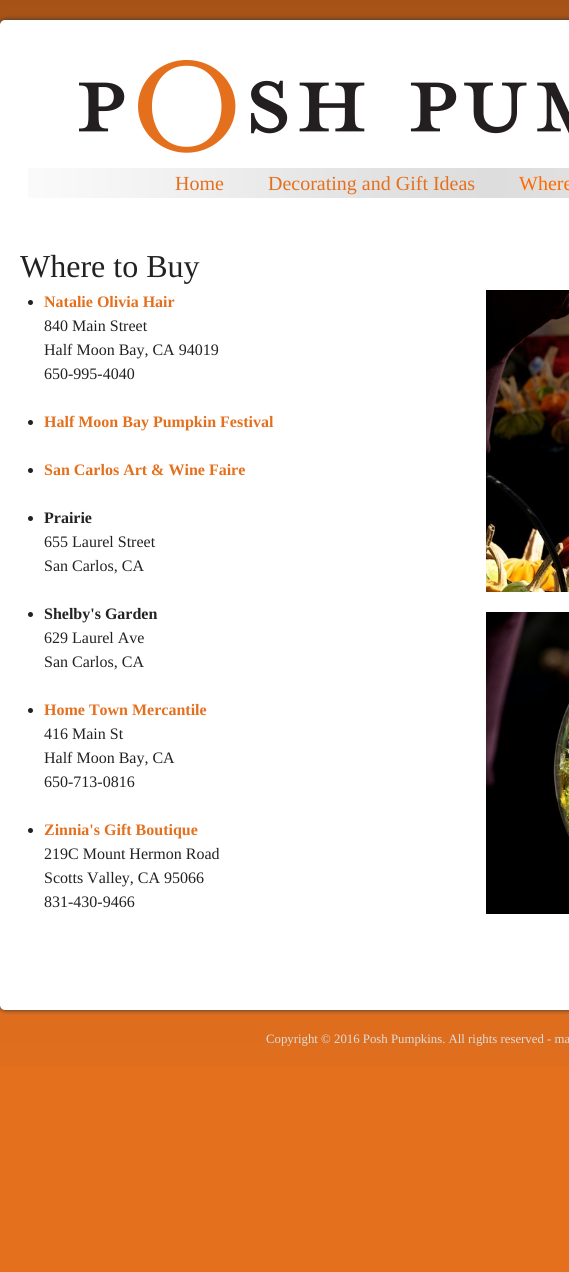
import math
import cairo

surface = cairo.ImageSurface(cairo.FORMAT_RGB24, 569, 1272)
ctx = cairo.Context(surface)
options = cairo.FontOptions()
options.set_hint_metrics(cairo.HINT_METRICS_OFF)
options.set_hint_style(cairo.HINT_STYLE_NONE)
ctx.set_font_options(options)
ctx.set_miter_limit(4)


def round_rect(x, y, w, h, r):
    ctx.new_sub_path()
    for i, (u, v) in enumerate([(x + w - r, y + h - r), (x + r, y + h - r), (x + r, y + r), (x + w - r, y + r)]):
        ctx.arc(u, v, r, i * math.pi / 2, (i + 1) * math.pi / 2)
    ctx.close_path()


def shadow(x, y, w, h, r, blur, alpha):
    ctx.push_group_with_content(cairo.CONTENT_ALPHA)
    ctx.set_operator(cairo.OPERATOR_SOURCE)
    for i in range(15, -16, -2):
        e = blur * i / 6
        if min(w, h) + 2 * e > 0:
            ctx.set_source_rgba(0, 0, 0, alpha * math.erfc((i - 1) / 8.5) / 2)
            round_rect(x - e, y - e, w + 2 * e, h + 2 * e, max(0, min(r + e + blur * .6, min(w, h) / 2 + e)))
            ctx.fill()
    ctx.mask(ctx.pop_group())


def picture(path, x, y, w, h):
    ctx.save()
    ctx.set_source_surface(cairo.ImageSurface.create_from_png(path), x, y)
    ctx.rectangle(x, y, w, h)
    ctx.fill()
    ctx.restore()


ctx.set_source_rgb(0.894, 0.439, 0.118)
ctx.paint()
picture("img1.png", 0, 0, 569, 1067)
ctx.set_source_rgb(0.2, 0.2, 0.2)
shadow(0, 20, 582, 990, 5, 2.5, 1)
ctx.set_source_rgb(1, 1, 1)
round_rect(0, 20, 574, 990, 5)
ctx.fill()
picture("img2.png", 79, 60, 490, 93)
picture("img3.png", 28, 168, 541, 30)
ctx.select_font_face("Liberation Serif")
ctx.set_font_size(20)
ctx.set_source_rgb(0.894, 0.439, 0.118)
ctx.move_to(175, 190)
ctx.show_text("Home")
ctx.move_to(268, 190)
ctx.show_text("Decorating and Gift Ideas")
ctx.set_source_rgb(1, 0.416, 0)
ctx.move_to(519, 190)
ctx.show_text("Where")
ctx.set_font_size(32)
ctx.set_source_rgb(0.133, 0.133, 0.133)
ctx.move_to(20, 277)
ctx.show_text("Where to Buy")
ctx.new_path()
ctx.arc(30.5, 302.5, 2.5, 0, 2 * math.pi)
ctx.fill()
ctx.select_font_face("Liberation Serif", cairo.FONT_SLANT_NORMAL, cairo.FONT_WEIGHT_BOLD)
ctx.set_font_size(16)
ctx.set_source_rgb(0.894, 0.439, 0.118)
ctx.move_to(44, 307)
ctx.show_text("Natalie Olivia Hair")
picture("img4.png", 486, 290, 83, 302)
picture("img5.png", 486, 612, 83, 302)
ctx.select_font_face("Liberation Serif")
ctx.set_source_rgb(0.133, 0.133, 0.133)
ctx.move_to(44, 331)
ctx.show_text("840 Main Street")
ctx.move_to(44, 355)
ctx.show_text("Half Moon Bay, CA 94019")
ctx.move_to(44, 379)
ctx.show_text("650-995-4040")
ctx.new_path()
ctx.arc(30.5, 422.5, 2.5, 0, 2 * math.pi)
ctx.fill()
ctx.select_font_face("Liberation Serif", cairo.FONT_SLANT_NORMAL, cairo.FONT_WEIGHT_BOLD)
ctx.set_source_rgb(0.894, 0.439, 0.118)
ctx.move_to(44, 427)
ctx.show_text("Half Moon Bay Pumpkin Festival")
ctx.set_source_rgb(0.133, 0.133, 0.133)
ctx.new_path()
ctx.arc(30.5, 470.5, 2.5, 0, 2 * math.pi)
ctx.fill()
ctx.set_source_rgb(0.894, 0.439, 0.118)
ctx.move_to(44, 475)
ctx.show_text("San Carlos Art & Wine Faire")
ctx.set_source_rgb(0.133, 0.133, 0.133)
ctx.new_path()
ctx.arc(30.5, 518.5, 2.5, 0, 2 * math.pi)
ctx.fill()
ctx.move_to(44, 523)
ctx.show_text("Prairie")
ctx.select_font_face("Liberation Serif")
ctx.move_to(44, 547)
ctx.show_text("655 Laurel Street")
ctx.move_to(44, 571)
ctx.show_text("San Carlos, CA")
ctx.new_path()
ctx.arc(30.5, 614.5, 2.5, 0, 2 * math.pi)
ctx.fill()
ctx.select_font_face("Liberation Serif", cairo.FONT_SLANT_NORMAL, cairo.FONT_WEIGHT_BOLD)
ctx.move_to(44, 619)
ctx.show_text("Shelby's Garden")
ctx.select_font_face("Liberation Serif")
ctx.move_to(44, 643)
ctx.show_text("629 Laurel Ave")
ctx.move_to(44, 667)
ctx.show_text("San Carlos, CA")
ctx.new_path()
ctx.arc(30.5, 710.5, 2.5, 0, 2 * math.pi)
ctx.fill()
ctx.select_font_face("Liberation Serif", cairo.FONT_SLANT_NORMAL, cairo.FONT_WEIGHT_BOLD)
ctx.set_source_rgb(0.894, 0.439, 0.118)
ctx.move_to(44, 715)
ctx.show_text("Home Town Mercantile")
ctx.select_font_face("Liberation Serif")
ctx.set_source_rgb(0.133, 0.133, 0.133)
ctx.move_to(44, 739)
ctx.show_text("416 Main St")
ctx.move_to(44, 763)
ctx.show_text("Half Moon Bay, CA")
ctx.move_to(44, 787)
ctx.show_text("650-713-0816")
ctx.new_path()
ctx.arc(30.5, 830.5, 2.5, 0, 2 * math.pi)
ctx.fill()
ctx.select_font_face("Liberation Serif", cairo.FONT_SLANT_NORMAL, cairo.FONT_WEIGHT_BOLD)
ctx.set_source_rgb(0.894, 0.439, 0.118)
ctx.move_to(44, 835)
ctx.show_text("Zinnia's Gift Boutique")
ctx.select_font_face("Liberation Serif")
ctx.set_source_rgb(0.133, 0.133, 0.133)
ctx.move_to(44, 859)
ctx.show_text("219C Mount Hermon Road")
ctx.move_to(44, 883)
ctx.show_text("Scotts Valley, CA 95066")
ctx.move_to(44, 907)
ctx.show_text("831-430-9466")
ctx.set_font_size(12.8)
ctx.set_source_rgb(0.867, 0.867, 0.867)
ctx.move_to(266, 1043)
ctx.show_text("Copyright © 2016 Posh Pumpkins. All rights reserved - ma")
surface.write_to_png("page.png")
